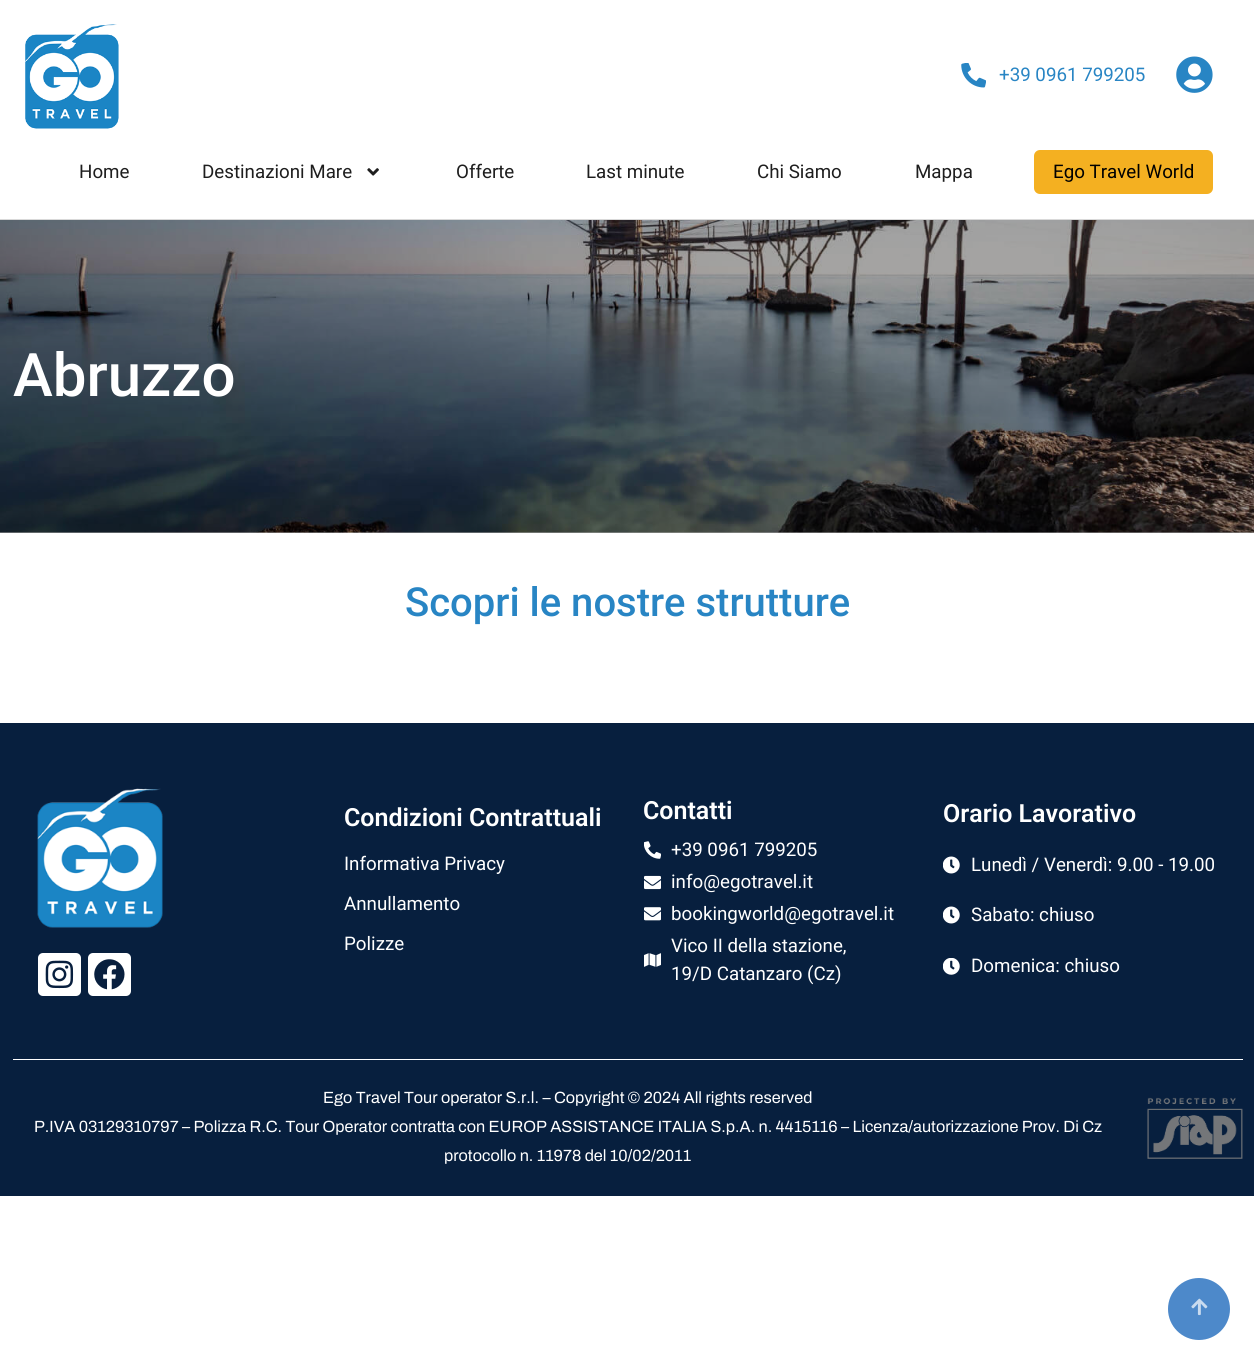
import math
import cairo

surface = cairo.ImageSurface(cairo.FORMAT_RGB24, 1254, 1364)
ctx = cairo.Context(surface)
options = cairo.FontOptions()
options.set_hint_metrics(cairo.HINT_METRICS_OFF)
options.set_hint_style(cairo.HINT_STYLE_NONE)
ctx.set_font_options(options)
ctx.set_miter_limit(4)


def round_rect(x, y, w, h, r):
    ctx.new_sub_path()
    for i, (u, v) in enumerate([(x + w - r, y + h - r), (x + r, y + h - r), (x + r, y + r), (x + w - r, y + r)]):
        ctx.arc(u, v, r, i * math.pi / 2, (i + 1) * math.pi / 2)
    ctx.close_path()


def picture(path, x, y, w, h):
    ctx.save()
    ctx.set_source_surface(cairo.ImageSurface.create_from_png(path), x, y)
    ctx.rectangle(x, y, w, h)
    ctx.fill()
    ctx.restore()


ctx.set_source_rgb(1, 1, 1)
ctx.paint()
ctx.set_source_rgb(0.651, 0.651, 0.651)
ctx.rectangle(0, 532, 1254, 1)
ctx.fill()
picture("img1.png", 25, 24, 94, 105)
picture("img2.png", 961, 63, 25, 25)
ctx.select_font_face("Roboto")
ctx.set_font_size(18.75)
ctx.set_source_rgb(0.157, 0.522, 0.769)
ctx.move_to(999, 81)
ctx.show_text("+39 0961 799205")
picture("img3.png", 1176, 56, 37, 37)
ctx.set_source_rgb(0.851, 0.851, 0.851)
ctx.rectangle(0, 219, 1254, 1)
ctx.fill()
ctx.set_source_rgb(0.118, 0.118, 0.118)
ctx.move_to(79, 178)
ctx.show_text("Home")
ctx.move_to(202, 178)
ctx.show_text("Destinazioni Mare")
picture("img4.png", 367, 168, 12, 8)
ctx.move_to(456, 178)
ctx.show_text("Offerte")
ctx.move_to(586, 178)
ctx.show_text("Last minute")
ctx.move_to(757, 178)
ctx.show_text("Chi Siamo")
ctx.move_to(915, 178)
ctx.show_text("Mappa")
ctx.set_source_rgb(0.957, 0.69, 0.129)
round_rect(1034, 150, 179, 44, 6)
ctx.fill()
ctx.set_source_rgb(0, 0, 0)
ctx.move_to(1053, 178)
ctx.show_text("Ego Travel World")
picture("img5.png", 0, 220, 1254, 313)
ctx.select_font_face("Roboto Medium")
ctx.set_font_size(60)
ctx.set_source_rgb(1, 1, 1)
ctx.move_to(13, 396)
ctx.show_text("Abruzzo")
ctx.set_font_size(40)
ctx.set_source_rgb(0.157, 0.522, 0.769)
ctx.move_to(405, 616)
ctx.show_text("Scopri le nostre strutture")
ctx.set_source_rgb(0.031, 0.122, 0.243)
ctx.rectangle(0, 723, 1254, 473)
ctx.fill()
picture("img6.png", 37, 788, 126, 140)
ctx.set_source_rgb(1, 1, 1)
round_rect(38, 953, 43, 43, 5)
ctx.fill()
picture("img7.png", 45, 960, 29, 29)
round_rect(88, 953, 43, 43, 5)
ctx.fill()
picture("img8.png", 94, 959, 31, 31)
ctx.select_font_face("Roboto SemiBold")
ctx.set_font_size(25)
ctx.move_to(344, 826)
ctx.show_text("Condizioni Contrattuali")
ctx.select_font_face("Roboto")
ctx.set_font_size(18.75)
ctx.move_to(344, 870)
ctx.show_text("Informativa Privacy")
ctx.move_to(344, 910)
ctx.show_text("Annullamento")
ctx.move_to(344, 950)
ctx.show_text("Polizze")
ctx.select_font_face("Roboto SemiBold")
ctx.set_font_size(25)
ctx.move_to(643, 819)
ctx.show_text("Contatti")
picture("img9.png", 644, 841, 17, 18)
ctx.select_font_face("Roboto")
ctx.set_font_size(18.75)
ctx.move_to(671, 856)
ctx.show_text("+39 0961 799205")
picture("img10.png", 644, 875, 17, 15)
ctx.move_to(671, 888)
ctx.show_text("info@egotravel.it")
picture("img11.png", 644, 907, 17, 14)
ctx.move_to(671, 920)
ctx.show_text("bookingworld@egotravel.it")
picture("img12.png", 644, 953, 17, 14)
ctx.move_to(671, 952)
ctx.show_text("Vico II della stazione,")
ctx.move_to(671, 980)
ctx.show_text("19/D Catanzaro (Cz)")
ctx.select_font_face("Roboto SemiBold")
ctx.set_font_size(25)
ctx.move_to(943, 822)
ctx.show_text("Orario Lavorativo")
picture("img13.png", 943, 856, 17, 18)
ctx.select_font_face("Roboto")
ctx.set_font_size(18.75)
ctx.move_to(971, 871)
ctx.show_text("Lunedì / Venerdì: 9.00 - 19.00")
picture("img13.png", 943, 906, 17, 18)
ctx.move_to(971, 921)
ctx.show_text("Sabato: chiuso")
picture("img14.png", 943, 958, 17, 17)
ctx.move_to(971, 972)
ctx.show_text("Domenica: chiuso")
ctx.rectangle(13, 1059, 1230, 1)
ctx.fill()
ctx.select_font_face("Archivo")
ctx.set_font_size(16.25)
ctx.move_to(323, 1103)
ctx.show_text("Ego Travel Tour operator S.r.l. – Copyright © 2024 All rights reserved")
ctx.move_to(34, 1132)
ctx.show_text("P.IVA 03129310797 – Polizza R.C. Tour Operator contratta con EUROP ASSISTANCE ITALIA S.p.A. n. 4415116 – Licenza/autorizzazione Prov. Di Cz")
ctx.move_to(444, 1161)
ctx.show_text("protocollo n. 11978 del 10/02/2011")
picture("img15.png", 1147, 1097, 96, 62)
ctx.set_source_rgb(0.302, 0.537, 0.792)
ctx.arc(1199, 1309, 31, 0, 2 * math.pi)
ctx.fill()
picture("img16.png", 1191, 1298, 17, 18)
surface.write_to_png("page.png")
